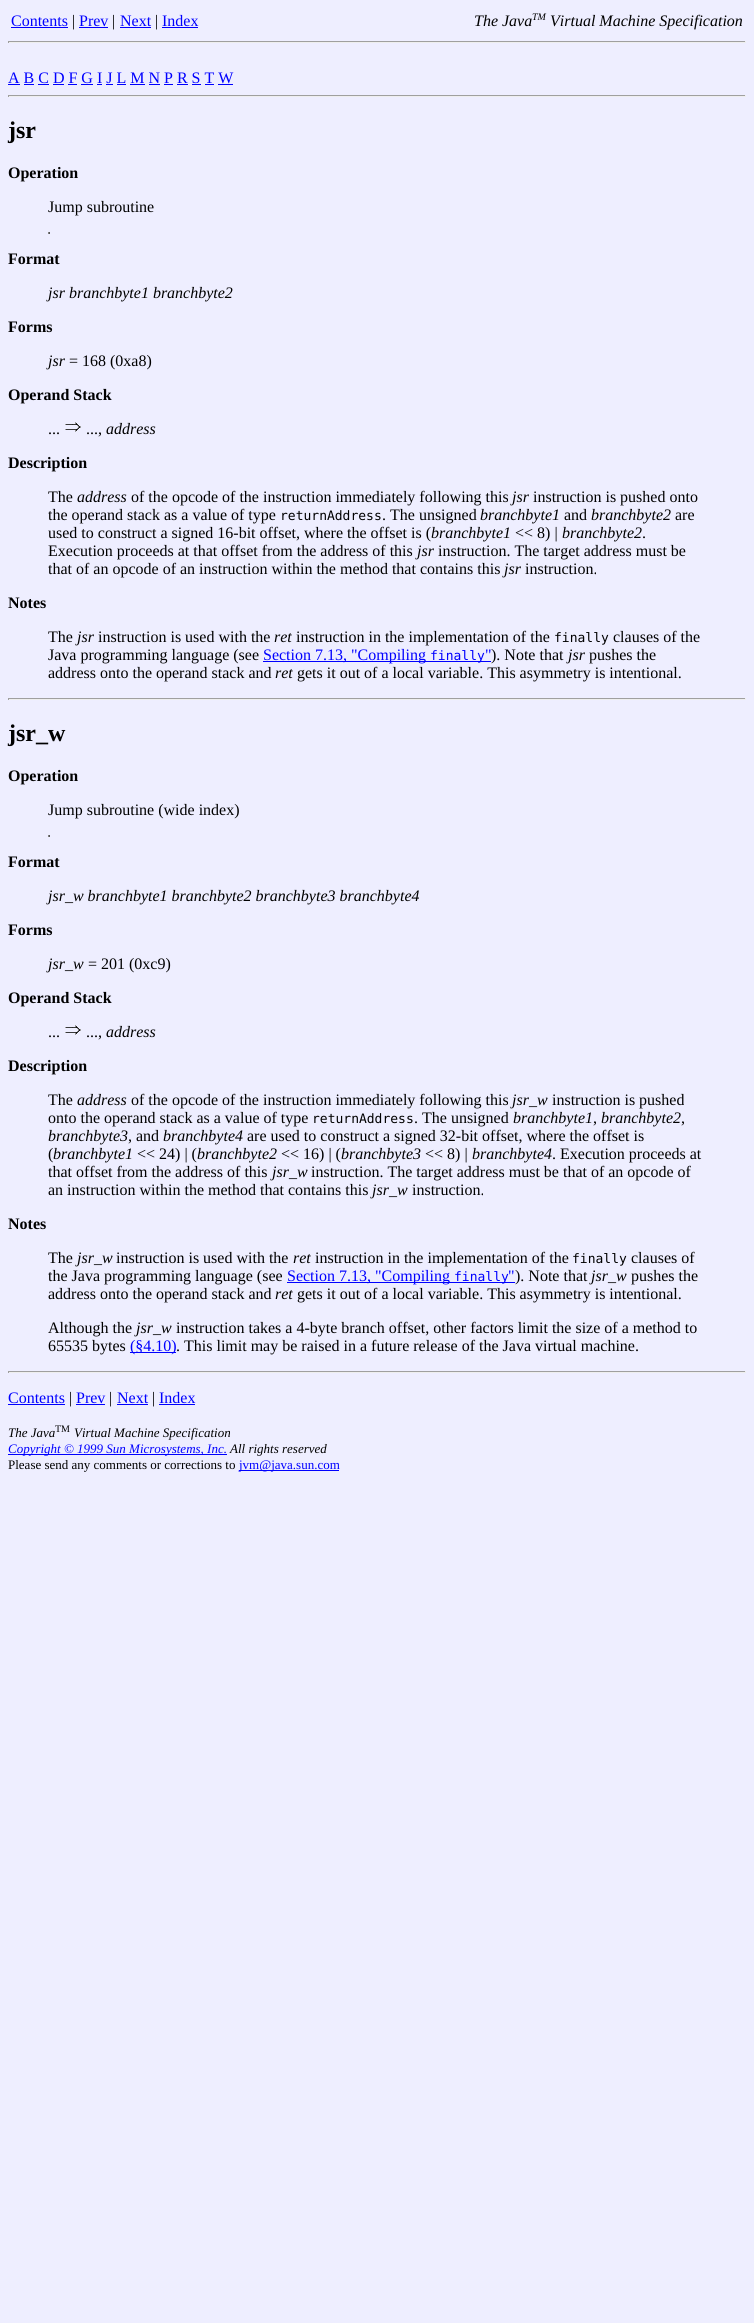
import math
import cairo

surface = cairo.ImageSurface(cairo.FORMAT_RGB24, 754, 2323)
ctx = cairo.Context(surface)
options = cairo.FontOptions()
options.set_hint_metrics(cairo.HINT_METRICS_OFF)
options.set_hint_style(cairo.HINT_STYLE_NONE)
ctx.set_font_options(options)
ctx.set_miter_limit(4)


def picture(path, x, y, w, h):
    ctx.save()
    ctx.set_source_surface(cairo.ImageSurface.create_from_png(path), x, y)
    ctx.rectangle(x, y, w, h)
    ctx.fill()
    ctx.restore()


ctx.set_source_rgb(0.933, 0.933, 1)
ctx.paint()
ctx.select_font_face("Liberation Serif")
ctx.set_font_size(16)
ctx.set_source_rgb(0, 0, 1)
ctx.move_to(11, 26)
ctx.show_text("Contents")
ctx.rectangle(11, 27, 57, 1)
ctx.fill()
ctx.set_source_rgb(0, 0, 0)
ctx.move_to(72, 26)
ctx.show_text("|")
ctx.set_source_rgb(0, 0, 1)
ctx.move_to(79, 26)
ctx.show_text("Prev")
ctx.rectangle(79, 27, 29, 1)
ctx.fill()
ctx.set_source_rgb(0, 0, 0)
ctx.move_to(112, 26)
ctx.show_text("|")
ctx.set_source_rgb(0, 0, 1)
ctx.move_to(120, 26)
ctx.show_text("Next")
ctx.rectangle(120, 27, 31, 1)
ctx.fill()
ctx.set_source_rgb(0, 0, 0)
ctx.move_to(155, 26)
ctx.show_text("|")
ctx.set_source_rgb(0, 0, 1)
ctx.move_to(162, 26)
ctx.show_text("Index")
ctx.rectangle(162, 27, 36, 1)
ctx.fill()
ctx.select_font_face("Liberation Serif", cairo.FONT_SLANT_ITALIC)
ctx.set_source_rgb(0, 0, 0)
ctx.move_to(474, 26)
ctx.show_text("The Java")
ctx.set_font_size(10)
ctx.move_to(532, 20)
ctx.show_text("TM")
ctx.set_font_size(16)
ctx.move_to(550, 26)
ctx.show_text("Virtual Machine Specification")
ctx.set_source_rgb(0.624, 0.624, 0.624)
ctx.rectangle(8, 41, 738, 1)
ctx.fill()
ctx.set_source_rgb(0.933, 0.933, 0.933)
ctx.rectangle(745, 41, 1, 2)
ctx.fill()
ctx.rectangle(8, 42, 738, 1)
ctx.fill()
ctx.set_source_rgb(0.624, 0.624, 0.624)
ctx.rectangle(8, 41, 1, 2)
ctx.fill()
ctx.select_font_face("Liberation Serif")
ctx.set_source_rgb(0, 0, 1)
ctx.move_to(8, 83)
ctx.show_text("A B C D F G I J L M N P R S T W")
ctx.rectangle(8, 84, 12, 1)
ctx.fill()
ctx.rectangle(24, 84, 10, 1)
ctx.fill()
ctx.rectangle(38, 84, 11, 1)
ctx.fill()
ctx.rectangle(53, 84, 11, 1)
ctx.fill()
ctx.rectangle(68, 84, 9, 1)
ctx.fill()
ctx.rectangle(81, 84, 12, 1)
ctx.fill()
ctx.rectangle(97, 84, 5, 1)
ctx.fill()
ctx.rectangle(106, 84, 7, 1)
ctx.fill()
ctx.rectangle(117, 84, 9, 1)
ctx.fill()
ctx.rectangle(130, 84, 15, 1)
ctx.fill()
ctx.rectangle(149, 84, 11, 1)
ctx.fill()
ctx.rectangle(164, 84, 9, 1)
ctx.fill()
ctx.rectangle(177, 84, 11, 1)
ctx.fill()
ctx.rectangle(192, 84, 9, 1)
ctx.fill()
ctx.rectangle(205, 84, 9, 1)
ctx.fill()
ctx.rectangle(218, 84, 15, 1)
ctx.fill()
ctx.set_source_rgb(0.624, 0.624, 0.624)
ctx.rectangle(8, 95, 738, 1)
ctx.fill()
ctx.set_source_rgb(0.933, 0.933, 0.933)
ctx.rectangle(745, 95, 1, 2)
ctx.fill()
ctx.rectangle(8, 96, 738, 1)
ctx.fill()
ctx.set_source_rgb(0.624, 0.624, 0.624)
ctx.rectangle(8, 95, 1, 2)
ctx.fill()
ctx.select_font_face("Liberation Serif", cairo.FONT_SLANT_NORMAL, cairo.FONT_WEIGHT_BOLD)
ctx.set_font_size(24)
ctx.set_source_rgb(0, 0, 0)
ctx.move_to(8, 138)
ctx.show_text("jsr")
ctx.set_font_size(16)
ctx.move_to(8, 178)
ctx.show_text("Operation")
ctx.select_font_face("Liberation Serif")
ctx.move_to(48, 212)
ctx.show_text("Jump subroutine")
ctx.set_source_rgb(0.333, 0.333, 0.333)
ctx.rectangle(49, 232, 1, 2)
ctx.fill()
ctx.rectangle(48, 233, 2, 1)
ctx.fill()
ctx.set_source_rgb(0.502, 0.502, 0.502)
ctx.rectangle(48, 232, 1, 2)
ctx.fill()
ctx.select_font_face("Liberation Serif", cairo.FONT_SLANT_NORMAL, cairo.FONT_WEIGHT_BOLD)
ctx.set_source_rgb(0, 0, 0)
ctx.move_to(8, 264)
ctx.show_text("Format")
ctx.select_font_face("Liberation Serif", cairo.FONT_SLANT_ITALIC)
ctx.move_to(48, 298)
ctx.show_text("jsr branchbyte1 branchbyte2")
ctx.select_font_face("Liberation Serif", cairo.FONT_SLANT_NORMAL, cairo.FONT_WEIGHT_BOLD)
ctx.move_to(8, 332)
ctx.show_text("Forms")
ctx.select_font_face("Liberation Serif", cairo.FONT_SLANT_ITALIC)
ctx.move_to(48, 366)
ctx.show_text("jsr")
ctx.select_font_face("Liberation Serif")
ctx.move_to(69, 366)
ctx.show_text("= 168 (0xa8)")
ctx.select_font_face("Liberation Serif", cairo.FONT_SLANT_NORMAL, cairo.FONT_WEIGHT_BOLD)
ctx.move_to(8, 400)
ctx.show_text("Operand Stack")
ctx.select_font_face("Liberation Serif")
ctx.move_to(48, 434)
ctx.show_text("...")
picture("img1.png", 65, 422, 16, 10)
ctx.move_to(86, 434)
ctx.show_text("...,")
ctx.select_font_face("Liberation Serif", cairo.FONT_SLANT_ITALIC)
ctx.move_to(106, 434)
ctx.show_text("address")
ctx.select_font_face("Liberation Serif", cairo.FONT_SLANT_NORMAL, cairo.FONT_WEIGHT_BOLD)
ctx.move_to(8, 468)
ctx.show_text("Description")
ctx.select_font_face("Liberation Serif")
ctx.move_to(48, 502)
ctx.show_text("The")
ctx.select_font_face("Liberation Serif", cairo.FONT_SLANT_ITALIC)
ctx.move_to(77, 502)
ctx.show_text("address")
ctx.select_font_face("Liberation Serif")
ctx.move_to(131, 502)
ctx.show_text("of the opcode of the instruction immediately following this")
ctx.select_font_face("Liberation Serif", cairo.FONT_SLANT_ITALIC)
ctx.move_to(512, 502)
ctx.show_text("jsr")
ctx.select_font_face("Liberation Serif")
ctx.move_to(533, 502)
ctx.show_text("instruction is pushed onto")
ctx.move_to(48, 520)
ctx.show_text("the operand stack as a value of type")
ctx.select_font_face("DejaVu Sans Mono")
ctx.set_font_size(13)
ctx.move_to(280, 520)
ctx.show_text("returnAddress")
ctx.select_font_face("Liberation Serif")
ctx.set_font_size(16)
ctx.move_to(382, 520)
ctx.show_text(". The unsigned")
ctx.select_font_face("Liberation Serif", cairo.FONT_SLANT_ITALIC)
ctx.move_to(480, 520)
ctx.show_text("branchbyte1")
ctx.select_font_face("Liberation Serif")
ctx.move_to(564, 520)
ctx.show_text("and")
ctx.select_font_face("Liberation Serif", cairo.FONT_SLANT_ITALIC)
ctx.move_to(591, 520)
ctx.show_text("branchbyte2")
ctx.select_font_face("Liberation Serif")
ctx.move_to(675, 520)
ctx.show_text("are")
ctx.move_to(48, 538)
ctx.show_text("used to construct a signed 16-bit offset, where the offset is (")
ctx.select_font_face("Liberation Serif", cairo.FONT_SLANT_ITALIC)
ctx.move_to(431, 538)
ctx.show_text("branchbyte1")
ctx.select_font_face("Liberation Serif")
ctx.move_to(515, 538)
ctx.show_text("<< 8) |")
ctx.select_font_face("Liberation Serif", cairo.FONT_SLANT_ITALIC)
ctx.move_to(562, 538)
ctx.show_text("branchbyte2")
ctx.select_font_face("Liberation Serif")
ctx.move_to(642, 538)
ctx.show_text(".")
ctx.move_to(48, 556)
ctx.show_text("Execution proceeds at that offset from the address of this")
ctx.select_font_face("Liberation Serif", cairo.FONT_SLANT_ITALIC)
ctx.move_to(417, 556)
ctx.show_text("jsr")
ctx.select_font_face("Liberation Serif")
ctx.move_to(438, 556)
ctx.show_text("instruction. The target address must be")
ctx.move_to(48, 574)
ctx.show_text("that of an opcode of an instruction within the method that contains this")
ctx.select_font_face("Liberation Serif", cairo.FONT_SLANT_ITALIC)
ctx.move_to(504, 574)
ctx.show_text("jsr")
ctx.select_font_face("Liberation Serif")
ctx.move_to(525, 574)
ctx.show_text("instruction.")
ctx.select_font_face("Liberation Serif", cairo.FONT_SLANT_NORMAL, cairo.FONT_WEIGHT_BOLD)
ctx.move_to(8, 608)
ctx.show_text("Notes")
ctx.select_font_face("Liberation Serif")
ctx.move_to(48, 642)
ctx.show_text("The")
ctx.select_font_face("Liberation Serif", cairo.FONT_SLANT_ITALIC)
ctx.move_to(77, 642)
ctx.show_text("jsr")
ctx.select_font_face("Liberation Serif")
ctx.move_to(98, 642)
ctx.show_text("instruction is used with the")
ctx.select_font_face("Liberation Serif", cairo.FONT_SLANT_ITALIC)
ctx.move_to(274, 642)
ctx.show_text("ret")
ctx.select_font_face("Liberation Serif")
ctx.move_to(296, 642)
ctx.show_text("instruction in the implementation of the")
ctx.select_font_face("DejaVu Sans Mono")
ctx.set_font_size(13)
ctx.move_to(554, 642)
ctx.show_text("finally")
ctx.select_font_face("Liberation Serif")
ctx.set_font_size(16)
ctx.move_to(613, 642)
ctx.show_text("clauses of the")
ctx.move_to(48, 660)
ctx.show_text("Java programming language (see")
ctx.set_source_rgb(0, 0, 1)
ctx.rectangle(263, 661, 228, 1)
ctx.fill()
ctx.move_to(263, 660)
ctx.show_text("Section 7.13, \"Compiling")
ctx.select_font_face("DejaVu Sans Mono")
ctx.set_font_size(13)
ctx.move_to(430, 660)
ctx.show_text("finally")
ctx.select_font_face("Liberation Serif")
ctx.set_font_size(16)
ctx.move_to(485, 660)
ctx.show_text("\"")
ctx.set_source_rgb(0, 0, 0)
ctx.move_to(491, 660)
ctx.show_text("). Note that")
ctx.select_font_face("Liberation Serif", cairo.FONT_SLANT_ITALIC)
ctx.move_to(568, 660)
ctx.show_text("jsr")
ctx.select_font_face("Liberation Serif")
ctx.move_to(589, 660)
ctx.show_text("pushes the")
ctx.move_to(48, 678)
ctx.show_text("address onto the operand stack and")
ctx.select_font_face("Liberation Serif", cairo.FONT_SLANT_ITALIC)
ctx.move_to(275, 678)
ctx.show_text("ret")
ctx.select_font_face("Liberation Serif")
ctx.move_to(297, 678)
ctx.show_text("gets it out of a local variable. This asymmetry is intentional.")
ctx.set_source_rgb(0.624, 0.624, 0.624)
ctx.rectangle(8, 698, 738, 1)
ctx.fill()
ctx.set_source_rgb(0.933, 0.933, 0.933)
ctx.rectangle(745, 698, 1, 2)
ctx.fill()
ctx.rectangle(8, 699, 738, 1)
ctx.fill()
ctx.set_source_rgb(0.624, 0.624, 0.624)
ctx.rectangle(8, 698, 1, 2)
ctx.fill()
ctx.select_font_face("Liberation Serif", cairo.FONT_SLANT_NORMAL, cairo.FONT_WEIGHT_BOLD)
ctx.set_font_size(24)
ctx.set_source_rgb(0, 0, 0)
ctx.move_to(8, 741)
ctx.show_text("jsr_w")
ctx.set_font_size(16)
ctx.move_to(8, 781)
ctx.show_text("Operation")
ctx.select_font_face("Liberation Serif")
ctx.move_to(48, 815)
ctx.show_text("Jump subroutine (wide index)")
ctx.set_source_rgb(0.333, 0.333, 0.333)
ctx.rectangle(49, 835, 1, 2)
ctx.fill()
ctx.rectangle(48, 836, 2, 1)
ctx.fill()
ctx.set_source_rgb(0.502, 0.502, 0.502)
ctx.rectangle(48, 835, 1, 2)
ctx.fill()
ctx.select_font_face("Liberation Serif", cairo.FONT_SLANT_NORMAL, cairo.FONT_WEIGHT_BOLD)
ctx.set_source_rgb(0, 0, 0)
ctx.move_to(8, 867)
ctx.show_text("Format")
ctx.select_font_face("Liberation Serif", cairo.FONT_SLANT_ITALIC)
ctx.move_to(48, 901)
ctx.show_text("jsr_w branchbyte1 branchbyte2 branchbyte3 branchbyte4")
ctx.select_font_face("Liberation Serif", cairo.FONT_SLANT_NORMAL, cairo.FONT_WEIGHT_BOLD)
ctx.move_to(8, 935)
ctx.show_text("Forms")
ctx.select_font_face("Liberation Serif", cairo.FONT_SLANT_ITALIC)
ctx.move_to(48, 969)
ctx.show_text("jsr_w")
ctx.select_font_face("Liberation Serif")
ctx.move_to(88, 969)
ctx.show_text("= 201 (0xc9)")
ctx.select_font_face("Liberation Serif", cairo.FONT_SLANT_NORMAL, cairo.FONT_WEIGHT_BOLD)
ctx.move_to(8, 1003)
ctx.show_text("Operand Stack")
ctx.select_font_face("Liberation Serif")
ctx.move_to(48, 1037)
ctx.show_text("...")
picture("img1.png", 65, 1025, 16, 10)
ctx.move_to(86, 1037)
ctx.show_text("...,")
ctx.select_font_face("Liberation Serif", cairo.FONT_SLANT_ITALIC)
ctx.move_to(106, 1037)
ctx.show_text("address")
ctx.select_font_face("Liberation Serif", cairo.FONT_SLANT_NORMAL, cairo.FONT_WEIGHT_BOLD)
ctx.move_to(8, 1071)
ctx.show_text("Description")
ctx.select_font_face("Liberation Serif")
ctx.move_to(48, 1105)
ctx.show_text("The")
ctx.select_font_face("Liberation Serif", cairo.FONT_SLANT_ITALIC)
ctx.move_to(77, 1105)
ctx.show_text("address")
ctx.select_font_face("Liberation Serif")
ctx.move_to(131, 1105)
ctx.show_text("of the opcode of the instruction immediately following this")
ctx.select_font_face("Liberation Serif", cairo.FONT_SLANT_ITALIC)
ctx.move_to(512, 1105)
ctx.show_text("jsr_w")
ctx.select_font_face("Liberation Serif")
ctx.move_to(552, 1105)
ctx.show_text("instruction is pushed")
ctx.move_to(48, 1123)
ctx.show_text("onto the operand stack as a value of type")
ctx.select_font_face("DejaVu Sans Mono")
ctx.set_font_size(13)
ctx.move_to(312, 1123)
ctx.show_text("returnAddress")
ctx.select_font_face("Liberation Serif")
ctx.set_font_size(16)
ctx.move_to(414, 1123)
ctx.show_text(". The unsigned")
ctx.select_font_face("Liberation Serif", cairo.FONT_SLANT_ITALIC)
ctx.move_to(513, 1123)
ctx.show_text("branchbyte1")
ctx.select_font_face("Liberation Serif")
ctx.move_to(593, 1123)
ctx.show_text(",")
ctx.select_font_face("Liberation Serif", cairo.FONT_SLANT_ITALIC)
ctx.move_to(601, 1123)
ctx.show_text("branchbyte2")
ctx.select_font_face("Liberation Serif")
ctx.move_to(681, 1123)
ctx.show_text(",")
ctx.select_font_face("Liberation Serif", cairo.FONT_SLANT_ITALIC)
ctx.move_to(48, 1141)
ctx.show_text("branchbyte3")
ctx.select_font_face("Liberation Serif")
ctx.move_to(128, 1141)
ctx.show_text(", and")
ctx.select_font_face("Liberation Serif", cairo.FONT_SLANT_ITALIC)
ctx.move_to(163, 1141)
ctx.show_text("branchbyte4")
ctx.select_font_face("Liberation Serif")
ctx.move_to(247, 1141)
ctx.show_text("are used to construct a signed 32-bit offset, where the offset is")
ctx.move_to(48, 1159)
ctx.show_text("(")
ctx.select_font_face("Liberation Serif", cairo.FONT_SLANT_ITALIC)
ctx.move_to(53, 1159)
ctx.show_text("branchbyte1")
ctx.select_font_face("Liberation Serif")
ctx.move_to(137, 1159)
ctx.show_text("<< 24) | (")
ctx.select_font_face("Liberation Serif", cairo.FONT_SLANT_ITALIC)
ctx.move_to(197, 1159)
ctx.show_text("branchbyte2")
ctx.select_font_face("Liberation Serif")
ctx.move_to(281, 1159)
ctx.show_text("<< 16) | (")
ctx.select_font_face("Liberation Serif", cairo.FONT_SLANT_ITALIC)
ctx.move_to(341, 1159)
ctx.show_text("branchbyte3")
ctx.select_font_face("Liberation Serif")
ctx.move_to(425, 1159)
ctx.show_text("<< 8) |")
ctx.select_font_face("Liberation Serif", cairo.FONT_SLANT_ITALIC)
ctx.move_to(472, 1159)
ctx.show_text("branchbyte4")
ctx.select_font_face("Liberation Serif")
ctx.move_to(552, 1159)
ctx.show_text(". Execution proceeds at")
ctx.move_to(48, 1177)
ctx.show_text("that offset from the address of this")
ctx.select_font_face("Liberation Serif", cairo.FONT_SLANT_ITALIC)
ctx.move_to(272, 1177)
ctx.show_text("jsr_w")
ctx.select_font_face("Liberation Serif")
ctx.move_to(311, 1177)
ctx.show_text("instruction. The target address must be that of an opcode of")
ctx.move_to(48, 1195)
ctx.show_text("an instruction within the method that contains this")
ctx.select_font_face("Liberation Serif", cairo.FONT_SLANT_ITALIC)
ctx.move_to(372, 1195)
ctx.show_text("jsr_w")
ctx.select_font_face("Liberation Serif")
ctx.move_to(412, 1195)
ctx.show_text("instruction.")
ctx.select_font_face("Liberation Serif", cairo.FONT_SLANT_NORMAL, cairo.FONT_WEIGHT_BOLD)
ctx.move_to(8, 1229)
ctx.show_text("Notes")
ctx.select_font_face("Liberation Serif")
ctx.move_to(48, 1263)
ctx.show_text("The")
ctx.select_font_face("Liberation Serif", cairo.FONT_SLANT_ITALIC)
ctx.move_to(77, 1263)
ctx.show_text("jsr_w")
ctx.select_font_face("Liberation Serif")
ctx.move_to(116, 1263)
ctx.show_text("instruction is used with the")
ctx.select_font_face("Liberation Serif", cairo.FONT_SLANT_ITALIC)
ctx.move_to(293, 1263)
ctx.show_text("ret")
ctx.select_font_face("Liberation Serif")
ctx.move_to(315, 1263)
ctx.show_text("instruction in the implementation of the")
ctx.select_font_face("DejaVu Sans Mono")
ctx.set_font_size(13)
ctx.move_to(572, 1263)
ctx.show_text("finally")
ctx.select_font_face("Liberation Serif")
ctx.set_font_size(16)
ctx.move_to(631, 1263)
ctx.show_text("clauses of")
ctx.move_to(48, 1281)
ctx.show_text("the Java programming language (see")
ctx.set_source_rgb(0, 0, 1)
ctx.rectangle(287, 1282, 228, 1)
ctx.fill()
ctx.move_to(287, 1281)
ctx.show_text("Section 7.13, \"Compiling")
ctx.select_font_face("DejaVu Sans Mono")
ctx.set_font_size(13)
ctx.move_to(454, 1281)
ctx.show_text("finally")
ctx.select_font_face("Liberation Serif")
ctx.set_font_size(16)
ctx.move_to(508, 1281)
ctx.show_text("\"")
ctx.set_source_rgb(0, 0, 0)
ctx.move_to(515, 1281)
ctx.show_text("). Note that")
ctx.select_font_face("Liberation Serif", cairo.FONT_SLANT_ITALIC)
ctx.move_to(591, 1281)
ctx.show_text("jsr_w")
ctx.select_font_face("Liberation Serif")
ctx.move_to(631, 1281)
ctx.show_text("pushes the")
ctx.move_to(48, 1299)
ctx.show_text("address onto the operand stack and")
ctx.select_font_face("Liberation Serif", cairo.FONT_SLANT_ITALIC)
ctx.move_to(275, 1299)
ctx.show_text("ret")
ctx.select_font_face("Liberation Serif")
ctx.move_to(297, 1299)
ctx.show_text("gets it out of a local variable. This asymmetry is intentional.")
ctx.move_to(48, 1333)
ctx.show_text("Although the")
ctx.select_font_face("Liberation Serif", cairo.FONT_SLANT_ITALIC)
ctx.move_to(136, 1333)
ctx.show_text("jsr_w")
ctx.select_font_face("Liberation Serif")
ctx.move_to(176, 1333)
ctx.show_text("instruction takes a 4-byte branch offset, other factors limit the size of a method to")
ctx.move_to(48, 1351)
ctx.show_text("65535 bytes")
ctx.set_source_rgb(0, 0, 1)
ctx.rectangle(130, 1352, 46, 1)
ctx.fill()
ctx.move_to(130, 1351)
ctx.show_text("(§4.10)")
ctx.set_source_rgb(0, 0, 0)
ctx.move_to(176, 1351)
ctx.show_text(". This limit may be raised in a future release of the Java virtual machine.")
ctx.set_source_rgb(0.624, 0.624, 0.624)
ctx.rectangle(8, 1371, 738, 1)
ctx.fill()
ctx.set_source_rgb(0.933, 0.933, 0.933)
ctx.rectangle(745, 1371, 1, 2)
ctx.fill()
ctx.rectangle(8, 1372, 738, 1)
ctx.fill()
ctx.set_source_rgb(0.624, 0.624, 0.624)
ctx.rectangle(8, 1371, 1, 2)
ctx.fill()
ctx.set_source_rgb(0, 0, 1)
ctx.move_to(8, 1403)
ctx.show_text("Contents")
ctx.rectangle(8, 1404, 57, 1)
ctx.fill()
ctx.set_source_rgb(0, 0, 0)
ctx.move_to(69, 1403)
ctx.show_text("|")
ctx.set_source_rgb(0, 0, 1)
ctx.move_to(76, 1403)
ctx.show_text("Prev")
ctx.rectangle(76, 1404, 29, 1)
ctx.fill()
ctx.set_source_rgb(0, 0, 0)
ctx.move_to(109, 1403)
ctx.show_text("|")
ctx.set_source_rgb(0, 0, 1)
ctx.move_to(117, 1403)
ctx.show_text("Next")
ctx.rectangle(117, 1404, 31, 1)
ctx.fill()
ctx.set_source_rgb(0, 0, 0)
ctx.move_to(152, 1403)
ctx.show_text("|")
ctx.set_source_rgb(0, 0, 1)
ctx.move_to(159, 1403)
ctx.show_text("Index")
ctx.rectangle(159, 1404, 36, 1)
ctx.fill()
ctx.select_font_face("Liberation Serif", cairo.FONT_SLANT_ITALIC)
ctx.set_font_size(13)
ctx.set_source_rgb(0, 0, 0)
ctx.move_to(8, 1437)
ctx.show_text("The Java")
ctx.select_font_face("Liberation Serif")
ctx.set_font_size(10)
ctx.move_to(55, 1432)
ctx.show_text("TM")
ctx.select_font_face("Liberation Serif", cairo.FONT_SLANT_ITALIC)
ctx.set_font_size(13)
ctx.move_to(74, 1437)
ctx.show_text("Virtual Machine Specification")
ctx.set_source_rgb(0, 0, 1)
ctx.rectangle(8, 1454, 219, 1)
ctx.fill()
ctx.move_to(8, 1453)
ctx.show_text("Copyright © 1999 Sun Microsystems, Inc.")
ctx.set_source_rgb(0, 0, 0)
ctx.move_to(230, 1453)
ctx.show_text("All rights reserved")
ctx.select_font_face("Liberation Serif")
ctx.move_to(8, 1469)
ctx.show_text("Please send any comments or corrections to")
ctx.set_source_rgb(0, 0, 1)
ctx.rectangle(239, 1470, 100, 1)
ctx.fill()
ctx.move_to(239, 1469)
ctx.show_text("jvm@java.sun.com")
surface.write_to_png("page.png")
